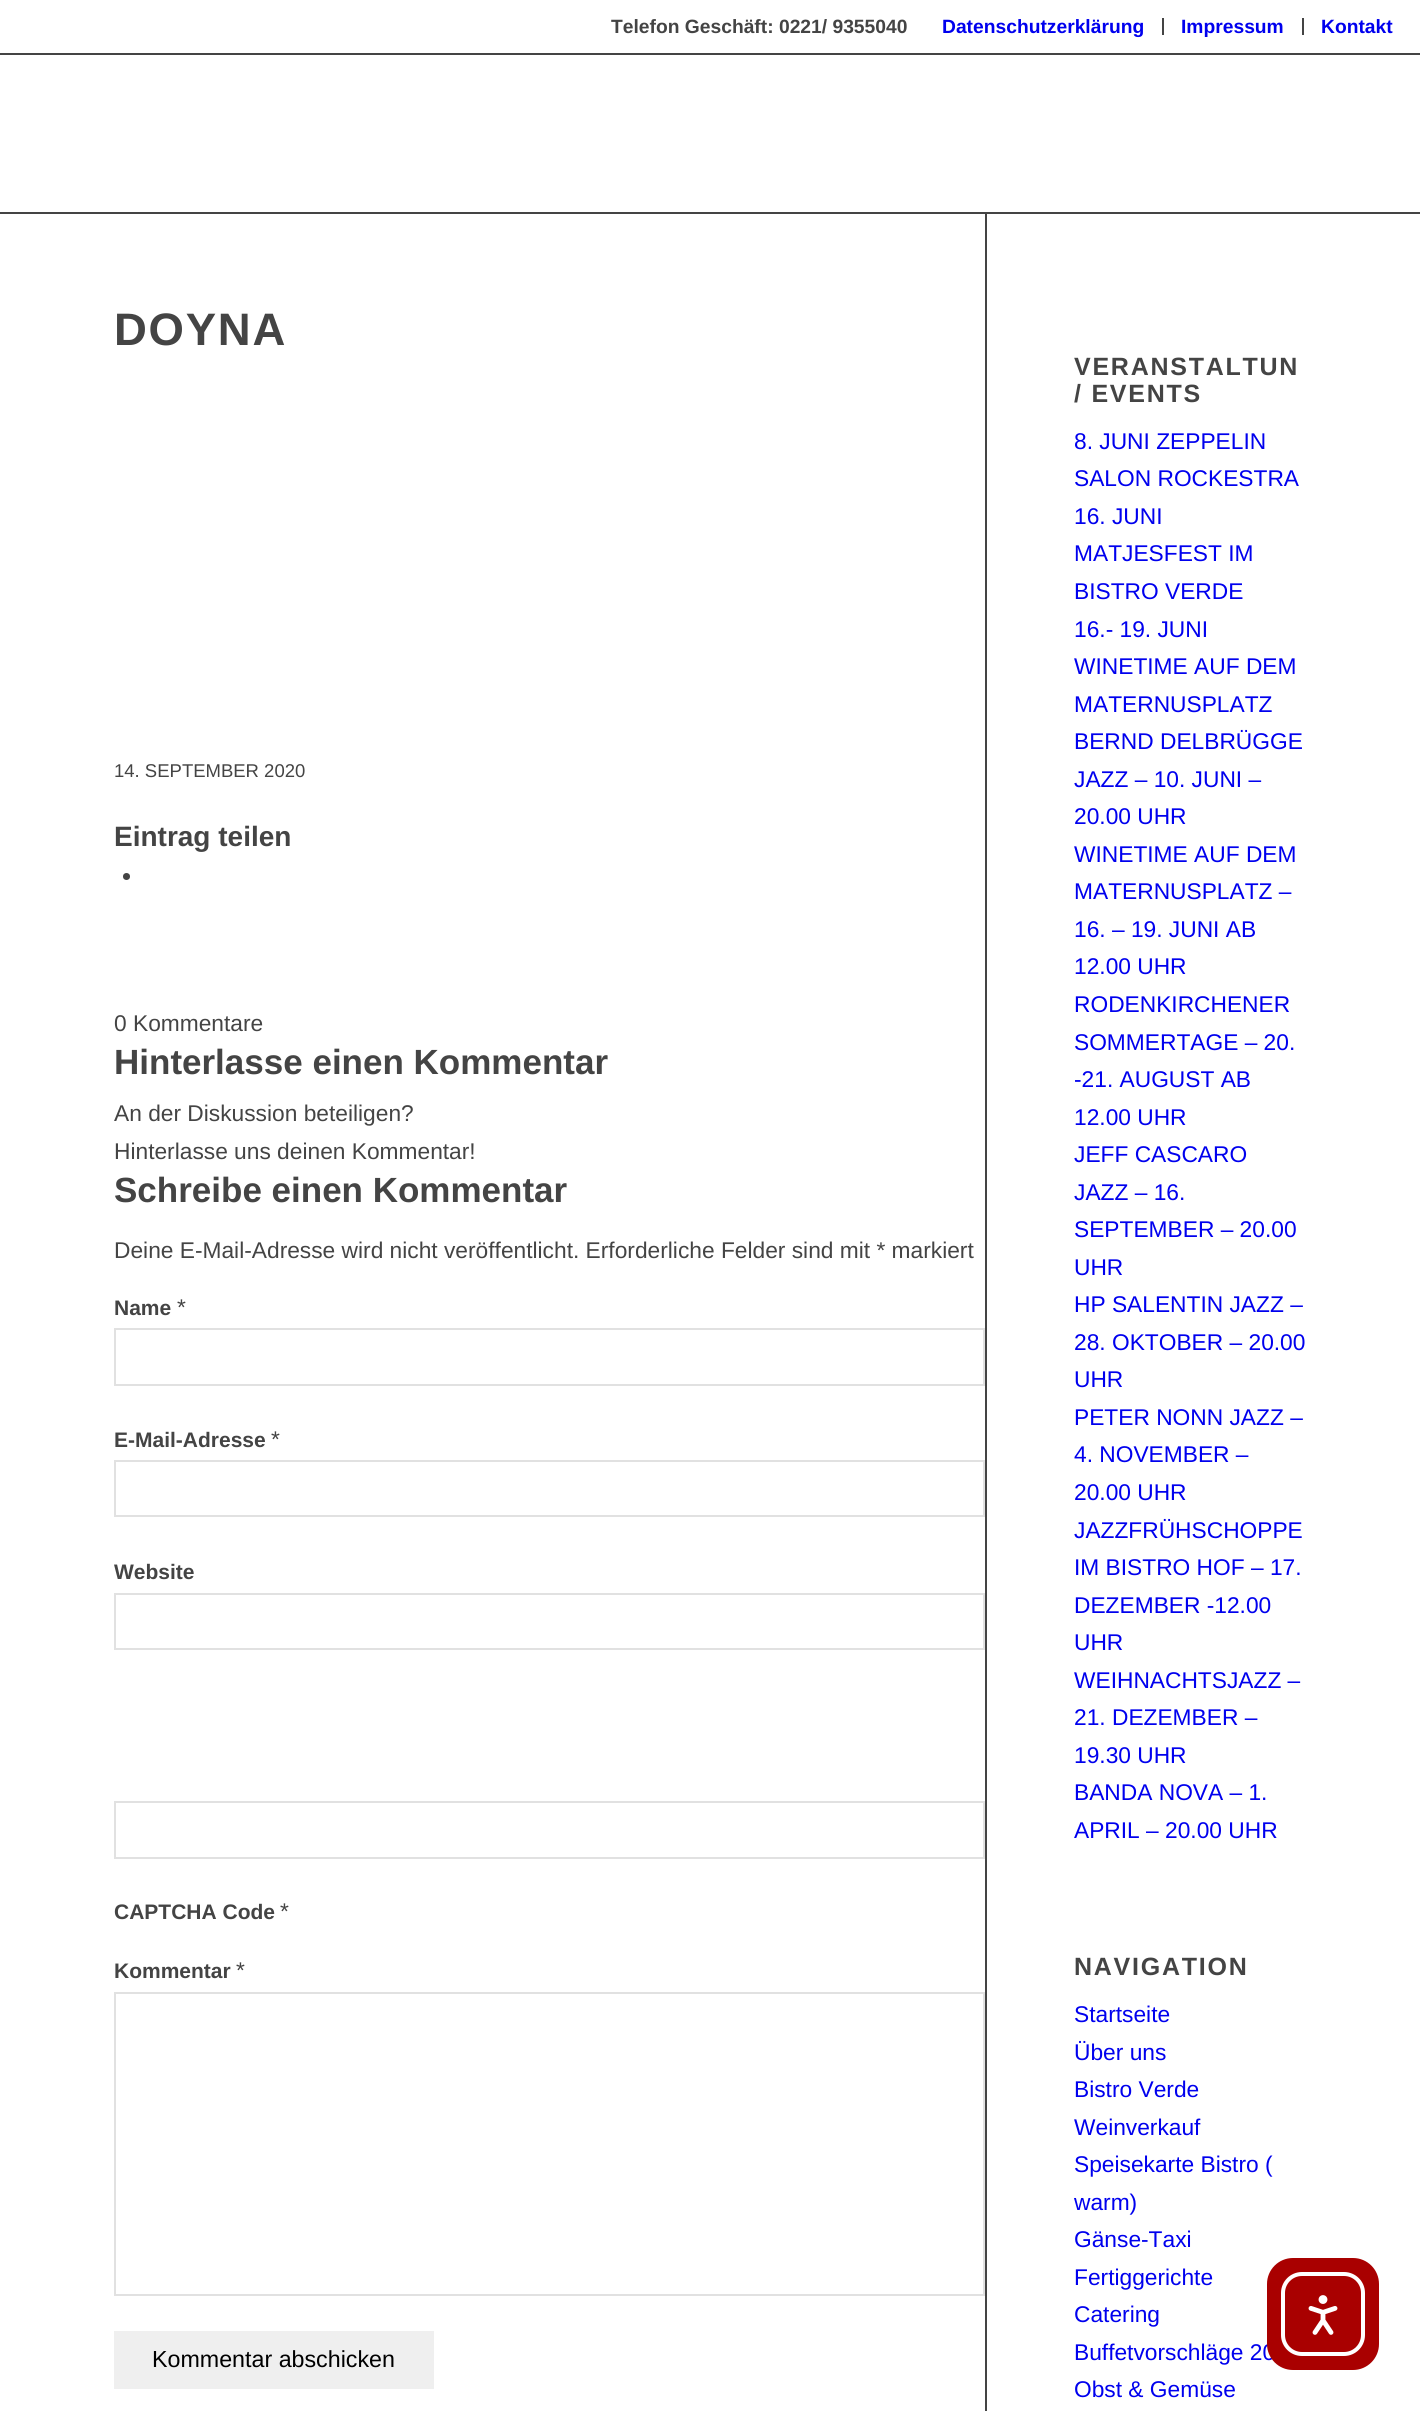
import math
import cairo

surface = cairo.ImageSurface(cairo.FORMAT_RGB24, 1420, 2411)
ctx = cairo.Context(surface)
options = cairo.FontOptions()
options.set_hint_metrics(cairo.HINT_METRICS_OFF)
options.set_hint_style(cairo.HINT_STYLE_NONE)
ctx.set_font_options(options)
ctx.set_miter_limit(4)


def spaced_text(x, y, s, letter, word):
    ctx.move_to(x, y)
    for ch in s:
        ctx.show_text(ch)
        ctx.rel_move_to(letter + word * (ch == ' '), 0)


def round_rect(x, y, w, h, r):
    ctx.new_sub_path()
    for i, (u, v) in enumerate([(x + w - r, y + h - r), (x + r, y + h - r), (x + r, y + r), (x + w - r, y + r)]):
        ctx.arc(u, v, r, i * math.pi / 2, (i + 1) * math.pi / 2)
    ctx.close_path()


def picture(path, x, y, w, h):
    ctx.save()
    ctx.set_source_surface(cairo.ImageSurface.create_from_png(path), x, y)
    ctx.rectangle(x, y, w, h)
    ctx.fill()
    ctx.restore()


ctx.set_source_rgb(1, 1, 1)
ctx.paint()
ctx.select_font_face("Liberation Sans", cairo.FONT_SLANT_NORMAL, cairo.FONT_WEIGHT_BOLD)
ctx.set_font_size(19.25)
ctx.set_source_rgb(0.267, 0.267, 0.267)
ctx.move_to(611, 33)
ctx.show_text("Telefon Geschäft: 0221/ 9355040")
ctx.rectangle(1162, 18, 2, 17)
ctx.fill()
ctx.set_source_rgb(0, 0, 0.933)
ctx.move_to(942, 33)
ctx.show_text("Datenschutzerklärung")
ctx.set_source_rgb(0.267, 0.267, 0.267)
ctx.rectangle(1302, 18, 2, 17)
ctx.fill()
ctx.set_source_rgb(0, 0, 0.933)
ctx.move_to(1181, 33)
ctx.show_text("Impressum")
ctx.move_to(1321, 33)
ctx.show_text("Kontakt")
ctx.set_source_rgb(0.267, 0.267, 0.267)
ctx.rectangle(0, 53, 1420, 2)
ctx.fill()
ctx.rectangle(0, 212, 1420, 2)
ctx.fill()
ctx.rectangle(985, 214, 2, 2197)
ctx.fill()
ctx.set_font_size(45.5)
spaced_text(114, 345, "DOYNA", 1.75, 0)
ctx.select_font_face("Liberation Sans")
ctx.set_font_size(18.5)
ctx.move_to(114, 777)
ctx.show_text("14. SEPTEMBER 2020")
ctx.select_font_face("Liberation Sans", cairo.FONT_SLANT_NORMAL, cairo.FONT_WEIGHT_BOLD)
ctx.set_font_size(28)
ctx.move_to(114, 846)
ctx.show_text("Eintrag teilen")
ctx.new_path()
ctx.arc(126.5, 876.5, 3.5, 0, 2 * math.pi)
ctx.fill()
ctx.select_font_face("Liberation Sans")
ctx.set_font_size(22.75)
ctx.move_to(114, 1031)
ctx.show_text("0 Kommentare")
ctx.select_font_face("Liberation Sans", cairo.FONT_SLANT_NORMAL, cairo.FONT_WEIGHT_BOLD)
ctx.set_font_size(35)
ctx.move_to(114, 1074)
ctx.show_text("Hinterlasse einen Kommentar")
ctx.select_font_face("Liberation Sans")
ctx.set_font_size(22.75)
ctx.move_to(114, 1121)
ctx.show_text("An der Diskussion beteiligen?")
ctx.move_to(114, 1159)
ctx.show_text("Hinterlasse uns deinen Kommentar!")
ctx.select_font_face("Liberation Sans", cairo.FONT_SLANT_NORMAL, cairo.FONT_WEIGHT_BOLD)
ctx.set_font_size(35)
ctx.move_to(114, 1202)
ctx.show_text("Schreibe einen Kommentar")
ctx.select_font_face("Liberation Sans")
ctx.set_font_size(22.75)
ctx.move_to(114, 1258)
ctx.show_text("Deine E-Mail-Adresse wird nicht veröffentlicht. Erforderliche Felder sind mit * markiert")
ctx.select_font_face("Liberation Sans", cairo.FONT_SLANT_NORMAL, cairo.FONT_WEIGHT_BOLD)
ctx.set_font_size(21)
ctx.move_to(114, 1315)
ctx.show_text("Name")
ctx.select_font_face("Liberation Sans")
ctx.set_font_size(22.75)
ctx.move_to(177, 1315)
ctx.show_text("*")
ctx.rectangle(115, 1329, 869, 56)
ctx.set_source_rgb(0.882, 0.882, 0.882)
ctx.stroke()
ctx.select_font_face("Liberation Sans", cairo.FONT_SLANT_NORMAL, cairo.FONT_WEIGHT_BOLD)
ctx.set_font_size(21)
ctx.set_source_rgb(0.267, 0.267, 0.267)
ctx.move_to(114, 1447)
ctx.show_text("E-Mail-Adresse")
ctx.select_font_face("Liberation Sans")
ctx.set_font_size(22.75)
ctx.move_to(271, 1447)
ctx.show_text("*")
ctx.rectangle(115, 1461, 869, 55)
ctx.set_source_rgb(0.882, 0.882, 0.882)
ctx.stroke()
ctx.select_font_face("Liberation Sans", cairo.FONT_SLANT_NORMAL, cairo.FONT_WEIGHT_BOLD)
ctx.set_font_size(21)
ctx.set_source_rgb(0.267, 0.267, 0.267)
ctx.move_to(114, 1579)
ctx.show_text("Website")
ctx.rectangle(115, 1594, 869, 55)
ctx.set_source_rgb(0.882, 0.882, 0.882)
ctx.stroke()
ctx.rectangle(115, 1802, 869, 56)
ctx.stroke()
ctx.set_source_rgb(0.267, 0.267, 0.267)
ctx.move_to(114, 1919)
ctx.show_text("CAPTCHA Code")
ctx.select_font_face("Liberation Sans")
ctx.set_font_size(22.75)
ctx.move_to(280, 1919)
ctx.show_text("*")
ctx.select_font_face("Liberation Sans", cairo.FONT_SLANT_NORMAL, cairo.FONT_WEIGHT_BOLD)
ctx.set_font_size(21)
ctx.move_to(114, 1978)
ctx.show_text("Kommentar")
ctx.select_font_face("Liberation Sans")
ctx.set_font_size(22.75)
ctx.move_to(236, 1978)
ctx.show_text("*")
ctx.rectangle(115, 1993, 869, 302)
ctx.set_source_rgb(0.882, 0.882, 0.882)
ctx.stroke()
ctx.set_source_rgb(0.937, 0.937, 0.937)
ctx.rectangle(114, 2331, 320, 58)
ctx.fill()
ctx.set_font_size(23.25)
ctx.set_source_rgb(0, 0, 0)
ctx.move_to(152, 2367)
ctx.show_text("Kommentar abschicken")
ctx.select_font_face("Liberation Sans", cairo.FONT_SLANT_NORMAL, cairo.FONT_WEIGHT_BOLD)
ctx.set_font_size(25)
ctx.set_source_rgb(0.267, 0.267, 0.267)
spaced_text(1074, 375, "VERANSTALTUN", 1.75, 0)
spaced_text(1074, 402, "/ EVENTS", 1.75, 0)
ctx.select_font_face("Liberation Sans")
ctx.set_font_size(22.75)
ctx.set_source_rgb(0, 0, 0.933)
ctx.move_to(1074, 449)
ctx.show_text("8. JUNI ZEPPELIN")
ctx.move_to(1074, 486)
ctx.show_text("SALON ROCKESTRA")
ctx.move_to(1074, 524)
ctx.show_text("16. JUNI")
ctx.move_to(1074, 561)
ctx.show_text("MATJESFEST IM")
ctx.move_to(1074, 599)
ctx.show_text("BISTRO VERDE")
ctx.move_to(1074, 637)
ctx.show_text("16.- 19. JUNI")
ctx.move_to(1074, 674)
ctx.show_text("WINETIME AUF DEM")
ctx.move_to(1074, 712)
ctx.show_text("MATERNUSPLATZ")
ctx.move_to(1074, 749)
ctx.show_text("BERND DELBRÜGGE")
ctx.move_to(1074, 787)
ctx.show_text("JAZZ – 10. JUNI –")
ctx.move_to(1074, 824)
ctx.show_text("20.00 UHR")
ctx.move_to(1074, 862)
ctx.show_text("WINETIME AUF DEM")
ctx.move_to(1074, 899)
ctx.show_text("MATERNUSPLATZ –")
ctx.move_to(1074, 937)
ctx.show_text("16. – 19. JUNI AB")
ctx.move_to(1074, 974)
ctx.show_text("12.00 UHR")
ctx.move_to(1074, 1012)
ctx.show_text("RODENKIRCHENER")
ctx.move_to(1074, 1050)
ctx.show_text("SOMMERTAGE – 20.")
ctx.move_to(1074, 1087)
ctx.show_text("-21. AUGUST AB")
ctx.move_to(1074, 1125)
ctx.show_text("12.00 UHR")
ctx.move_to(1074, 1162)
ctx.show_text("JEFF CASCARO")
ctx.move_to(1074, 1200)
ctx.show_text("JAZZ – 16.")
ctx.move_to(1074, 1237)
ctx.show_text("SEPTEMBER – 20.00")
ctx.move_to(1074, 1275)
ctx.show_text("UHR")
ctx.move_to(1074, 1312)
ctx.show_text("HP SALENTIN JAZZ –")
ctx.move_to(1074, 1350)
ctx.show_text("28. OKTOBER – 20.00")
ctx.move_to(1074, 1387)
ctx.show_text("UHR")
ctx.move_to(1074, 1425)
ctx.show_text("PETER NONN JAZZ –")
ctx.move_to(1074, 1462)
ctx.show_text("4. NOVEMBER –")
ctx.move_to(1074, 1500)
ctx.show_text("20.00 UHR")
ctx.move_to(1074, 1538)
ctx.show_text("JAZZFRÜHSCHOPPE")
ctx.move_to(1074, 1575)
ctx.show_text("IM BISTRO HOF – 17.")
ctx.move_to(1074, 1613)
ctx.show_text("DEZEMBER -12.00")
ctx.move_to(1074, 1650)
ctx.show_text("UHR")
ctx.move_to(1074, 1688)
ctx.show_text("WEIHNACHTSJAZZ –")
ctx.move_to(1074, 1725)
ctx.show_text("21. DEZEMBER –")
ctx.move_to(1074, 1763)
ctx.show_text("19.30 UHR")
ctx.move_to(1074, 1800)
ctx.show_text("BANDA NOVA – 1.")
ctx.move_to(1074, 1838)
ctx.show_text("APRIL – 20.00 UHR")
ctx.select_font_face("Liberation Sans", cairo.FONT_SLANT_NORMAL, cairo.FONT_WEIGHT_BOLD)
ctx.set_font_size(25)
ctx.set_source_rgb(0.267, 0.267, 0.267)
spaced_text(1074, 1975, "NAVIGATION", 1.75, 0)
ctx.select_font_face("Liberation Sans")
ctx.set_font_size(22.75)
ctx.set_source_rgb(0, 0, 0.933)
ctx.move_to(1074, 2022)
ctx.show_text("Startseite")
ctx.move_to(1074, 2060)
ctx.show_text("Über uns")
ctx.move_to(1074, 2097)
ctx.show_text("Bistro Verde")
ctx.move_to(1074, 2135)
ctx.show_text("Weinverkauf")
ctx.move_to(1074, 2172)
ctx.show_text("Speisekarte Bistro (")
ctx.move_to(1074, 2210)
ctx.show_text("warm)")
ctx.move_to(1074, 2247)
ctx.show_text("Gänse-Taxi")
ctx.move_to(1074, 2285)
ctx.show_text("Fertiggerichte")
ctx.move_to(1074, 2322)
ctx.show_text("Catering")
ctx.move_to(1074, 2360)
ctx.show_text("Buffetvorschläge 20")
ctx.move_to(1074, 2397)
ctx.show_text("Obst & Gemüse")
ctx.set_source_rgb(0.663, 0, 0)
round_rect(1267, 2258, 112, 112, 26)
ctx.fill()
round_rect(1283, 2274, 80, 80, 19)
ctx.set_source_rgb(1, 1, 1)
ctx.set_line_width(4)
ctx.stroke()
picture("img1.png", 1308, 2295, 30, 40)
surface.write_to_png("page.png")
